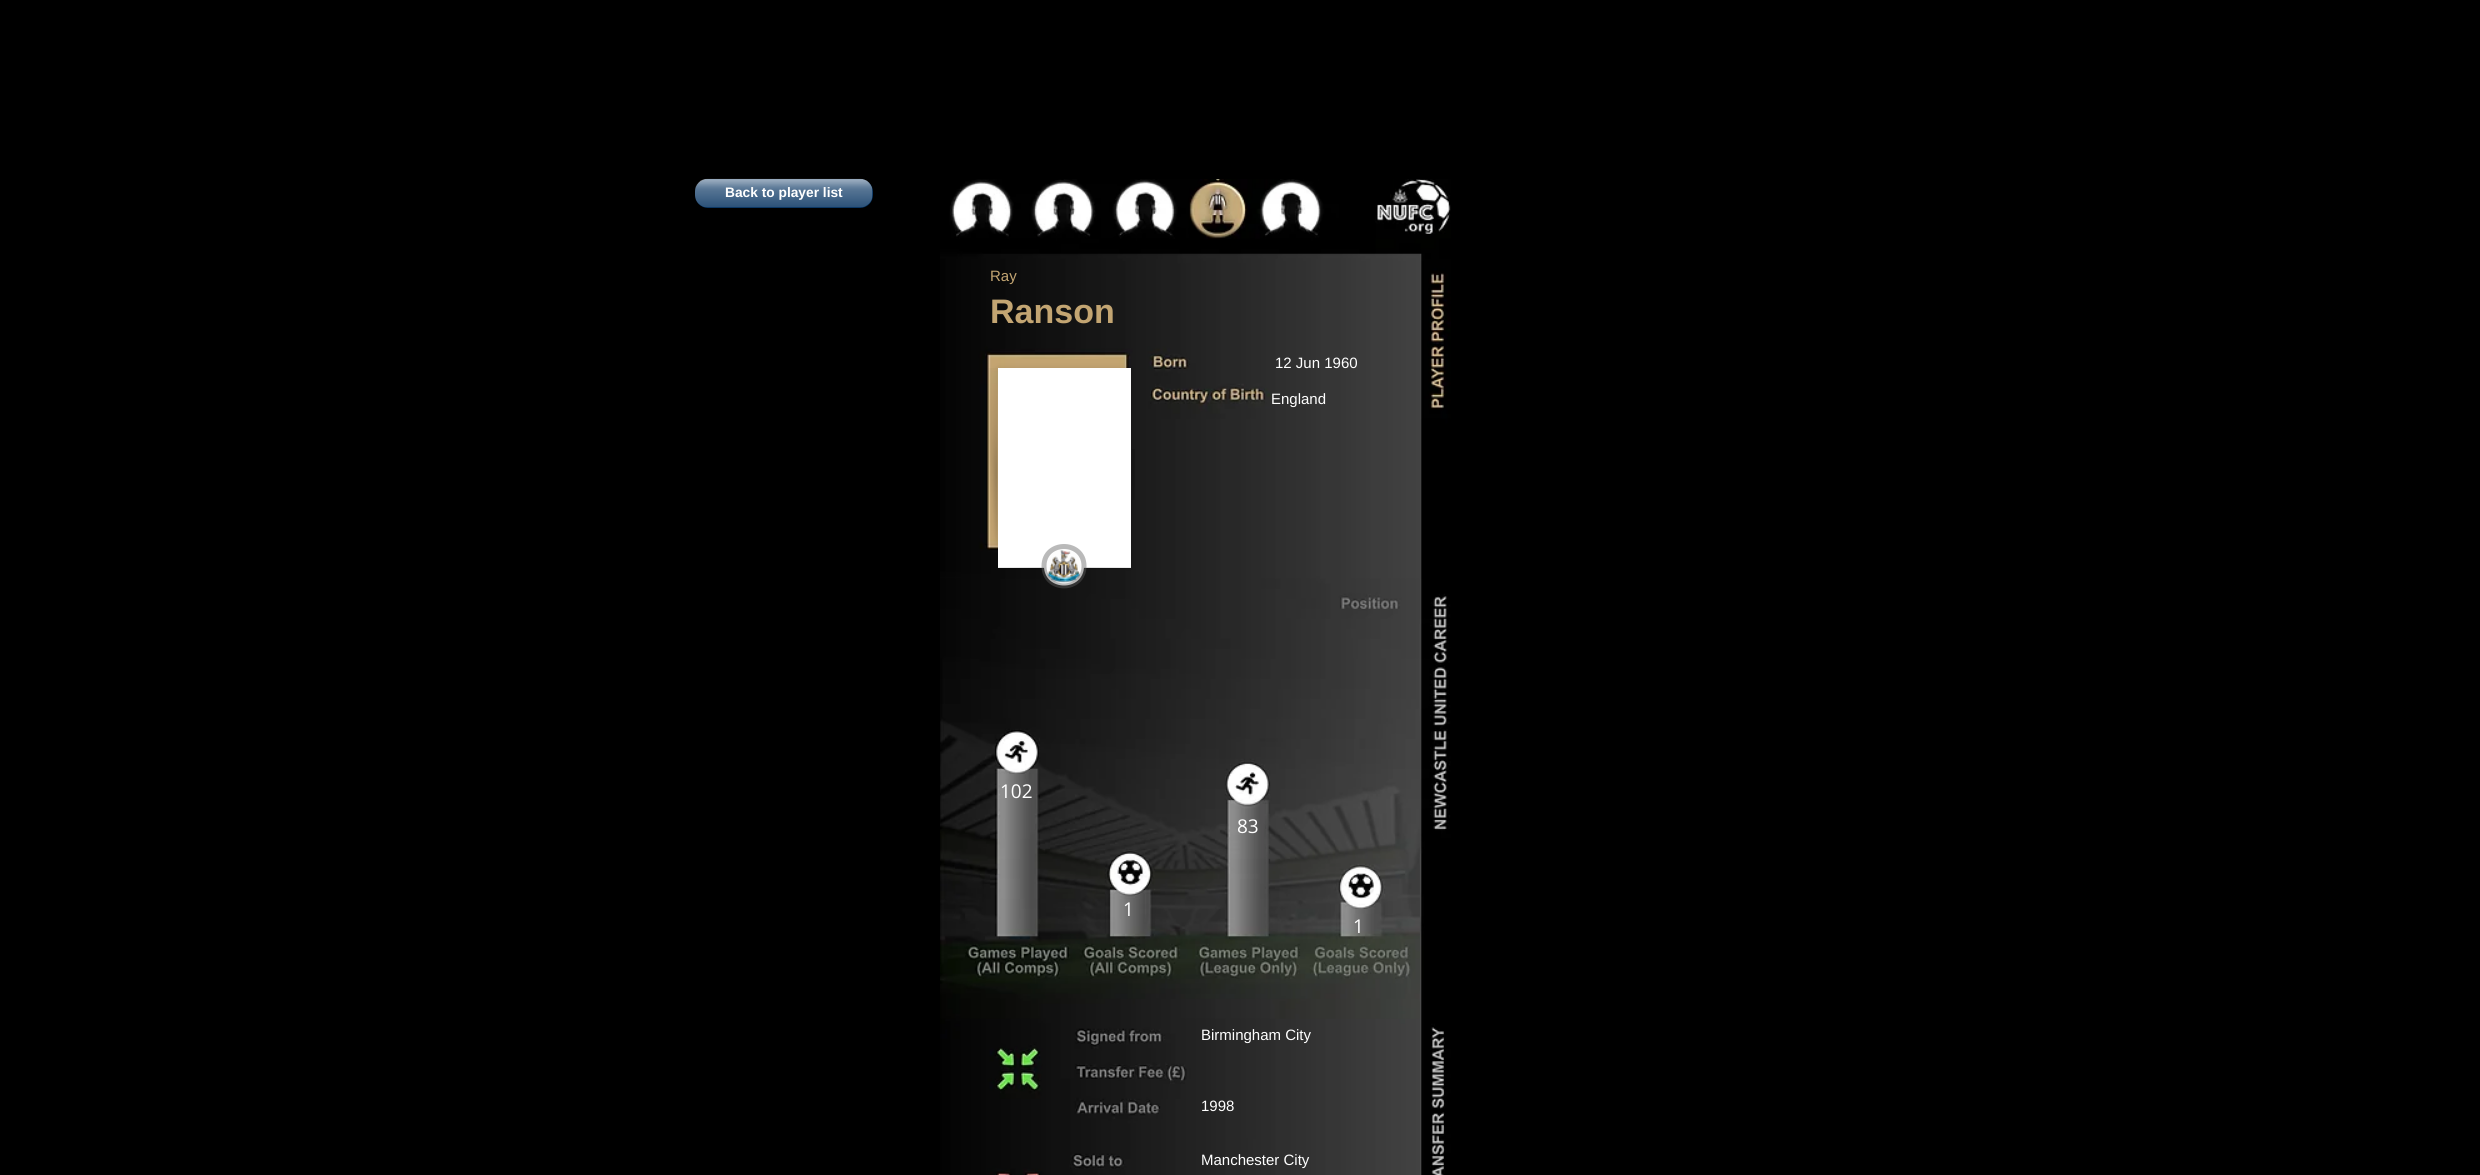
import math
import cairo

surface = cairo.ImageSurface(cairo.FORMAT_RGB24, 2480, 1175)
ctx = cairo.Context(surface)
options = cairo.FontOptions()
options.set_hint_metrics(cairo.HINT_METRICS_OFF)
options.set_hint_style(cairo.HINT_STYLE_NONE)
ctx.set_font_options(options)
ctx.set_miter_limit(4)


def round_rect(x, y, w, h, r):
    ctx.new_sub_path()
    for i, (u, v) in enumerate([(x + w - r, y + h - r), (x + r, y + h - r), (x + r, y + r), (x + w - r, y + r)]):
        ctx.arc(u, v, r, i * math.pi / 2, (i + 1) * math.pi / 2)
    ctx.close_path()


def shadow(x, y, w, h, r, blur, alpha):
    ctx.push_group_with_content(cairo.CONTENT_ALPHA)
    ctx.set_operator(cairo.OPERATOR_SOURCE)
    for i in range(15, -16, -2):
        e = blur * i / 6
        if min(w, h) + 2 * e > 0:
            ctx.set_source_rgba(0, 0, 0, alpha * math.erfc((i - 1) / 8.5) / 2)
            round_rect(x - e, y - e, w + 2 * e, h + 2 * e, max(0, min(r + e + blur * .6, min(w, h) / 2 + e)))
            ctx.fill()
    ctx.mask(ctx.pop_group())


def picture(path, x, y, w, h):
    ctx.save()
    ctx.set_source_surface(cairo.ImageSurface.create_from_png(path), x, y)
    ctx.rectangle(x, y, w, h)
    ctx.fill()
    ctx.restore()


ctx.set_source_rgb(0, 0, 0)
ctx.paint()
ctx.set_source_rgb(0, 0.18, 0.365)
round_rect(695, 179, 178, 29, 13)
ctx.fill()
picture("img1.png", 695, 178, 178, 30)
ctx.select_font_face("Liberation Sans", cairo.FONT_SLANT_NORMAL, cairo.FONT_WEIGHT_BOLD)
ctx.set_font_size(13.75)
ctx.set_source_rgb(1, 1, 1)
ctx.move_to(725, 197)
ctx.show_text("Back to player list")
picture("img2.png", 940, 179, 511, 996)
ctx.select_font_face("Liberation Sans")
ctx.set_font_size(15)
ctx.set_source_rgb(0.765, 0.647, 0.447)
ctx.move_to(990, 281)
ctx.show_text("Ray")
ctx.select_font_face("Liberation Sans", cairo.FONT_SLANT_NORMAL, cairo.FONT_WEIGHT_BOLD)
ctx.set_font_size(34)
ctx.move_to(990, 323)
ctx.show_text("Ranson")
ctx.set_source_rgb(0, 0, 0)
shadow(998, 368, 133, 200, 0, 3, 0.1)
ctx.set_source_rgb(1, 1, 1)
ctx.rectangle(998, 368, 133, 200)
ctx.fill()
picture("img3.png", 998, 567, 133, 2)
picture("img4.png", 988, 368, 10, 178)
picture("img5.png", 1132, 449, 3, 51)
ctx.select_font_face("Liberation Sans")
ctx.set_font_size(15)
ctx.move_to(1275, 368)
ctx.show_text("12 Jun 1960")
ctx.move_to(1271, 404)
ctx.show_text("England")
ctx.set_source_rgb(0.992, 0.992, 0.992)
ctx.new_path()
ctx.move_to(1084, 566)
ctx.curve_to(1084, 592, 1044, 592, 1044, 566)
ctx.curve_to(1044, 540, 1084, 540, 1084, 566)
ctx.close_path()
ctx.fill()
ctx.new_path()
ctx.move_to(1084, 566)
ctx.curve_to(1084, 592.5, 1044, 592.5, 1044, 566)
ctx.curve_to(1044, 540, 1084, 540, 1084, 566)
ctx.close_path()
ctx.set_source_rgba(0.373, 0.373, 0.373, 0.43)
ctx.set_line_width(5)
ctx.stroke()
picture("img6.png", 1047, 550, 33, 33)
ctx.select_font_face("Open Sans")
ctx.set_font_size(19)
ctx.set_source_rgb(1, 1, 1)
ctx.move_to(1000, 798)
ctx.show_text("102")
ctx.move_to(1237, 833)
ctx.show_text("83")
ctx.move_to(1123, 916)
ctx.show_text("1")
ctx.move_to(1353, 933)
ctx.show_text("1")
ctx.select_font_face("Liberation Sans")
ctx.set_font_size(15)
ctx.move_to(1201, 1040)
ctx.show_text("Birmingham City")
ctx.move_to(1201, 1111)
ctx.show_text("1998")
ctx.move_to(1201, 1165)
ctx.show_text("Manchester City")
surface.write_to_png("page.png")
